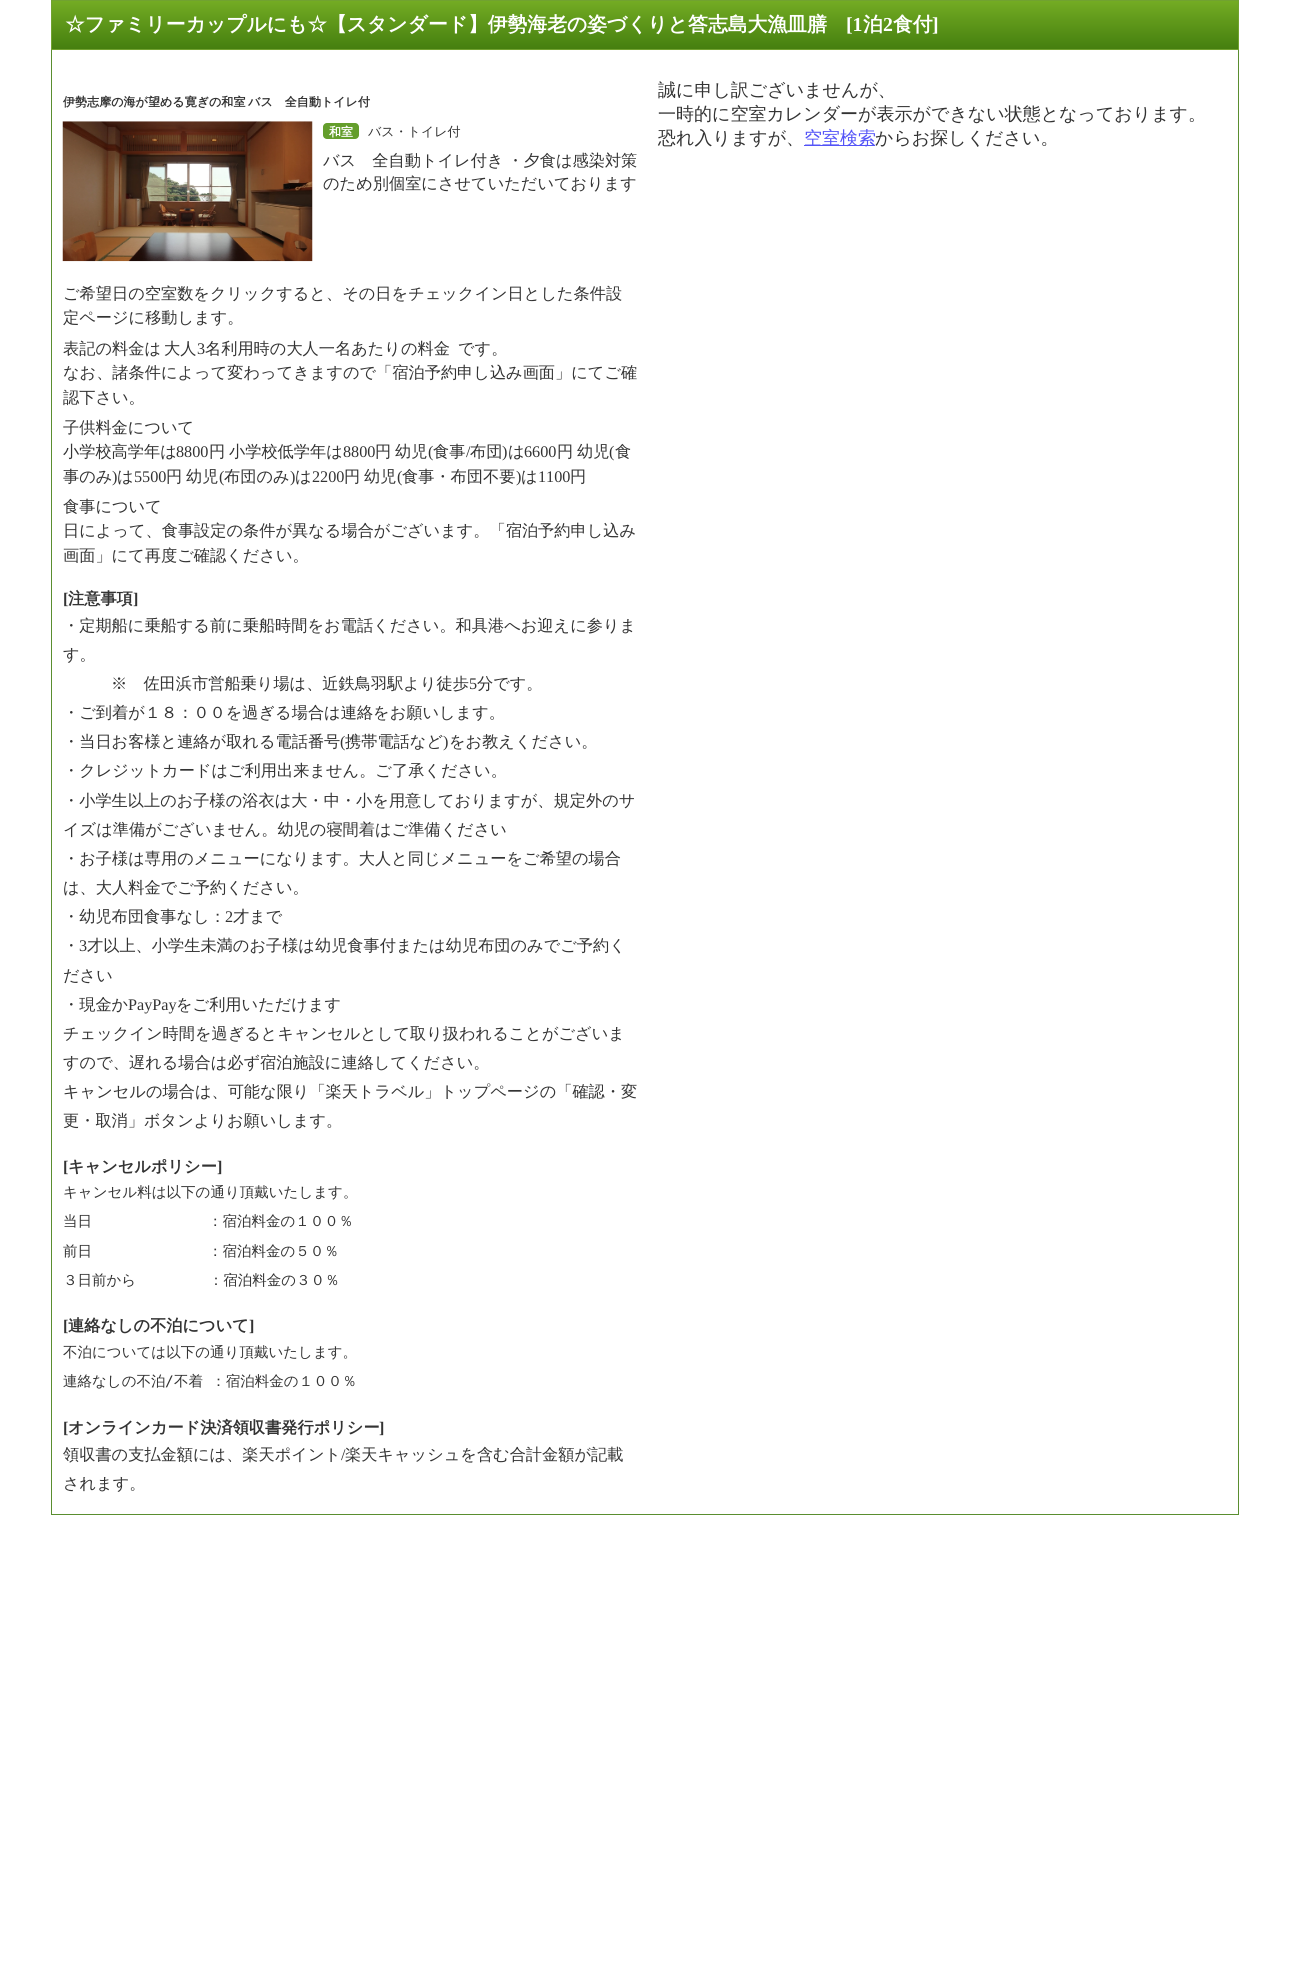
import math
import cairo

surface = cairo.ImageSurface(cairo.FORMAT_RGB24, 1290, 1976)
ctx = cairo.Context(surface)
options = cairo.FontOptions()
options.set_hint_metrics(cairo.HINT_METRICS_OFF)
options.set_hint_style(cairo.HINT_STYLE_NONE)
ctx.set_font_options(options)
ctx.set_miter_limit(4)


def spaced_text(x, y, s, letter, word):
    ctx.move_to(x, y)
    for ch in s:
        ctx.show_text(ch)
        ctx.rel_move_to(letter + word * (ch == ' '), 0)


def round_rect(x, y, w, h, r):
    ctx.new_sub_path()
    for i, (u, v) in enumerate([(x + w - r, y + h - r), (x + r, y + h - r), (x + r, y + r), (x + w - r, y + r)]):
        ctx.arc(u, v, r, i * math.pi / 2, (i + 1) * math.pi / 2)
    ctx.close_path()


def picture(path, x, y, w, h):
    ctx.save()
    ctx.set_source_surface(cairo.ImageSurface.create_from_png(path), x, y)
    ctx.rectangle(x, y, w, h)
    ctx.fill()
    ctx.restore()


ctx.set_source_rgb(1, 1, 1)
ctx.paint()
gradient = cairo.LinearGradient(645, 1.2, 645, 49)
gradient.add_color_stop_rgba(0, 0.451, 0.671, 0.137, 1)
gradient.add_color_stop_rgba(1, 0.271, 0.498, 0.059, 1)
ctx.set_source(gradient)
ctx.rectangle(52, 1, 1186, 48)
ctx.fill()
ctx.rectangle(51.5, 0.5, 1187, 49)
ctx.set_source_rgb(0.443, 0.635, 0.188)
ctx.set_line_width(1)
ctx.stroke()
ctx.select_font_face("WenQuanYi Zen Hei", cairo.FONT_SLANT_NORMAL, cairo.FONT_WEIGHT_BOLD)
ctx.set_font_size(19.8)
ctx.set_source_rgb(1, 1, 1)
ctx.move_to(65, 31)
ctx.show_text("☆ファミリーカップルにも☆【スタンダード】伊勢海老の姿づくりと答志島大漁皿膳")
ctx.select_font_face("Liberation Serif", cairo.FONT_SLANT_NORMAL, cairo.FONT_WEIGHT_BOLD)
ctx.move_to(846, 31)
ctx.show_text("[1")
ctx.select_font_face("WenQuanYi Zen Hei", cairo.FONT_SLANT_NORMAL, cairo.FONT_WEIGHT_BOLD)
ctx.move_to(863, 31)
ctx.show_text("泊")
ctx.select_font_face("Liberation Serif", cairo.FONT_SLANT_NORMAL, cairo.FONT_WEIGHT_BOLD)
ctx.move_to(883, 31)
ctx.show_text("2")
ctx.select_font_face("WenQuanYi Zen Hei", cairo.FONT_SLANT_NORMAL, cairo.FONT_WEIGHT_BOLD)
ctx.move_to(893, 31)
ctx.show_text("食付")
ctx.select_font_face("Liberation Serif", cairo.FONT_SLANT_NORMAL, cairo.FONT_WEIGHT_BOLD)
ctx.move_to(932, 31)
ctx.show_text("]")
ctx.set_source_rgb(0.353, 0.557, 0.184)
ctx.rectangle(1238, 50, 1, 1465)
ctx.fill()
ctx.rectangle(51, 1514, 1188, 1)
ctx.fill()
ctx.rectangle(51, 50, 1, 1465)
ctx.fill()
ctx.select_font_face("WenQuanYi Zen Hei", cairo.FONT_SLANT_NORMAL, cairo.FONT_WEIGHT_BOLD)
ctx.set_font_size(12.05)
ctx.set_source_rgb(0.2, 0.2, 0.2)
spaced_text(63, 106, "伊勢志摩の海が望める寛ぎの和室 バス　全自動トイレ付", 0, -1)
picture("img1.png", 62, 121, 251, 141)
ctx.set_source_rgb(0.392, 0.62, 0.173)
round_rect(323, 123, 36, 16, 4)
ctx.fill()
ctx.set_font_size(12)
ctx.set_source_rgb(1, 1, 1)
ctx.move_to(329, 136)
ctx.show_text("和室")
ctx.select_font_face("WenQuanYi Zen Hei Medium")
ctx.set_font_size(13)
ctx.set_source_rgb(0.2, 0.2, 0.2)
ctx.move_to(368, 136)
ctx.show_text("バス・トイレ付")
ctx.set_font_size(16.2)
spaced_text(323, 166, "バス　全自動トイレ付き ・夕食は感染対策", 0, -1)
ctx.move_to(323, 189)
ctx.show_text("のため別個室にさせていただいております")
ctx.move_to(63, 299)
ctx.show_text("ご希望日の空室数をクリックすると、その日をチェックイン日とした条件設")
ctx.move_to(63, 323)
ctx.show_text("定ページに移動します。")
ctx.move_to(63, 354)
ctx.show_text("表記の料金は")
ctx.move_to(164, 354)
ctx.show_text("大人")
ctx.select_font_face("Liberation Serif")
ctx.move_to(197, 354)
ctx.show_text("3")
ctx.select_font_face("WenQuanYi Zen Hei Medium")
ctx.move_to(205, 354)
ctx.show_text("名利用時の大人一名あたりの料金")
ctx.move_to(458, 354)
ctx.show_text("です。")
ctx.move_to(63, 378)
ctx.show_text("なお、諸条件によって変わってきますので「宿泊予約申し込み画面」にてご確")
ctx.save()
ctx.rectangle(63, 336, 575, 73)
ctx.clip()
ctx.move_to(63, 403)
ctx.show_text("認下さい。")
ctx.restore()
ctx.move_to(63, 433)
ctx.show_text("子供料金について")
ctx.move_to(63, 457)
ctx.show_text("小学校高学年は")
ctx.select_font_face("Liberation Serif")
ctx.move_to(176, 457)
ctx.show_text("8800")
ctx.select_font_face("WenQuanYi Zen Hei Medium")
ctx.move_to(209, 457)
ctx.show_text("円")
ctx.move_to(229, 457)
ctx.show_text("小学校低学年は")
ctx.select_font_face("Liberation Serif")
ctx.move_to(343, 457)
ctx.show_text("8800")
ctx.select_font_face("WenQuanYi Zen Hei Medium")
ctx.move_to(375, 457)
ctx.show_text("円")
ctx.move_to(395, 457)
ctx.show_text("幼児")
ctx.select_font_face("Liberation Serif")
ctx.move_to(428, 457)
ctx.show_text("(")
ctx.select_font_face("WenQuanYi Zen Hei Medium")
ctx.move_to(433, 457)
ctx.show_text("食事")
ctx.select_font_face("Liberation Serif")
ctx.move_to(466, 457)
ctx.show_text("/")
ctx.select_font_face("WenQuanYi Zen Hei Medium")
ctx.move_to(470, 457)
ctx.show_text("布団")
ctx.select_font_face("Liberation Serif")
ctx.move_to(502, 457)
ctx.show_text(")")
ctx.select_font_face("WenQuanYi Zen Hei Medium")
ctx.move_to(508, 457)
ctx.show_text("は")
ctx.select_font_face("Liberation Serif")
ctx.move_to(524, 457)
ctx.show_text("6600")
ctx.select_font_face("WenQuanYi Zen Hei Medium")
ctx.move_to(557, 457)
ctx.show_text("円")
ctx.move_to(577, 457)
ctx.show_text("幼児")
ctx.select_font_face("Liberation Serif")
ctx.move_to(609, 457)
ctx.show_text("(")
ctx.select_font_face("WenQuanYi Zen Hei Medium")
ctx.move_to(615, 457)
ctx.show_text("食")
ctx.move_to(63, 482)
ctx.show_text("事のみ")
ctx.select_font_face("Liberation Serif")
ctx.move_to(112, 482)
ctx.show_text(")")
ctx.select_font_face("WenQuanYi Zen Hei Medium")
ctx.move_to(117, 482)
ctx.show_text("は")
ctx.select_font_face("Liberation Serif")
ctx.move_to(134, 482)
ctx.show_text("5500")
ctx.select_font_face("WenQuanYi Zen Hei Medium")
ctx.move_to(166, 482)
ctx.show_text("円")
ctx.move_to(186, 482)
ctx.show_text("幼児")
ctx.select_font_face("Liberation Serif")
ctx.move_to(219, 482)
ctx.show_text("(")
ctx.select_font_face("WenQuanYi Zen Hei Medium")
ctx.move_to(224, 482)
ctx.show_text("布団のみ")
ctx.select_font_face("Liberation Serif")
ctx.move_to(290, 482)
ctx.show_text(")")
ctx.select_font_face("WenQuanYi Zen Hei Medium")
ctx.move_to(295, 482)
ctx.show_text("は")
ctx.select_font_face("Liberation Serif")
ctx.move_to(312, 482)
ctx.show_text("2200")
ctx.select_font_face("WenQuanYi Zen Hei Medium")
ctx.move_to(344, 482)
ctx.show_text("円")
ctx.move_to(364, 482)
ctx.show_text("幼児")
ctx.select_font_face("Liberation Serif")
ctx.move_to(397, 482)
ctx.show_text("(")
ctx.select_font_face("WenQuanYi Zen Hei Medium")
ctx.move_to(402, 482)
ctx.show_text("食事・布団不要")
ctx.select_font_face("Liberation Serif")
ctx.move_to(516, 482)
ctx.show_text(")")
ctx.select_font_face("WenQuanYi Zen Hei Medium")
ctx.move_to(521, 482)
ctx.show_text("は")
ctx.select_font_face("Liberation Serif")
ctx.move_to(538, 482)
ctx.show_text("1100")
ctx.select_font_face("WenQuanYi Zen Hei Medium")
ctx.move_to(570, 482)
ctx.show_text("円")
ctx.move_to(63, 512)
ctx.show_text("食事について")
ctx.move_to(63, 536)
ctx.show_text("日によって、食事設定の条件が異なる場合がございます。「宿泊予約申し込み")
ctx.move_to(63, 561)
ctx.show_text("画面」にて再度ご確認ください。")
ctx.select_font_face("Liberation Serif", cairo.FONT_SLANT_NORMAL, cairo.FONT_WEIGHT_BOLD)
ctx.move_to(63, 604)
ctx.show_text("[")
ctx.select_font_face("WenQuanYi Zen Hei", cairo.FONT_SLANT_NORMAL, cairo.FONT_WEIGHT_BOLD)
ctx.move_to(68, 604)
ctx.show_text("注意事項")
ctx.select_font_face("Liberation Serif", cairo.FONT_SLANT_NORMAL, cairo.FONT_WEIGHT_BOLD)
ctx.move_to(133, 604)
ctx.show_text("]")
ctx.select_font_face("WenQuanYi Zen Hei Medium")
ctx.move_to(63, 631)
ctx.show_text("・定期船に乗船する前に乗船時間をお電話ください。和具港へお迎えに参りま")
ctx.move_to(63, 660)
ctx.show_text("す。")
ctx.move_to(111, 689)
ctx.show_text("※　佐田浜市営船乗り場は、近鉄鳥羽駅より徒歩")
ctx.select_font_face("Liberation Serif")
ctx.move_to(469, 689)
ctx.show_text("5")
ctx.select_font_face("WenQuanYi Zen Hei Medium")
ctx.move_to(477, 689)
ctx.show_text("分です。")
ctx.move_to(63, 718)
ctx.show_text("・ご到着が１８：００を過ぎる場合は連絡をお願いします。")
ctx.move_to(63, 747)
ctx.show_text("・当日お客様と連絡が取れる電話番号")
ctx.select_font_face("Liberation Serif")
ctx.move_to(340, 747)
ctx.show_text("(")
ctx.select_font_face("WenQuanYi Zen Hei Medium")
ctx.move_to(345, 747)
ctx.show_text("携帯電話など")
ctx.select_font_face("Liberation Serif")
ctx.move_to(443, 747)
ctx.show_text(")")
ctx.select_font_face("WenQuanYi Zen Hei Medium")
ctx.move_to(449, 747)
ctx.show_text("をお教えください。")
ctx.move_to(63, 776)
ctx.show_text("・クレジットカードはご利用出来ません。ご了承ください。")
ctx.move_to(63, 806)
ctx.show_text("・小学生以上のお子様の浴衣は大・中・小を用意しておりますが、規定外のサ")
ctx.move_to(63, 835)
ctx.show_text("イズは準備がございません。幼児の寝間着はご準備ください")
ctx.move_to(63, 864)
ctx.show_text("・お子様は専用のメニューになります。大人と同じメニューをご希望の場合")
ctx.move_to(63, 893)
ctx.show_text("は、大人料金でご予約ください。")
ctx.move_to(63, 922)
ctx.show_text("・幼児布団食事なし：")
ctx.select_font_face("Liberation Serif")
ctx.move_to(225, 922)
ctx.show_text("2")
ctx.select_font_face("WenQuanYi Zen Hei Medium")
ctx.move_to(233, 922)
ctx.show_text("才まで")
ctx.move_to(63, 951)
ctx.show_text("・")
ctx.select_font_face("Liberation Serif")
ctx.move_to(79, 951)
ctx.show_text("3")
ctx.select_font_face("WenQuanYi Zen Hei Medium")
ctx.move_to(87, 951)
ctx.show_text("才以上、小学生未満のお子様は幼児食事付または幼児布団のみでご予約く")
ctx.move_to(63, 981)
ctx.show_text("ださい")
ctx.move_to(63, 1010)
ctx.show_text("・現金か")
ctx.select_font_face("Liberation Serif")
ctx.move_to(128, 1010)
ctx.show_text("PayPay")
ctx.select_font_face("WenQuanYi Zen Hei Medium")
ctx.move_to(176, 1010)
ctx.show_text("をご利用いただけます")
ctx.move_to(63, 1039)
ctx.show_text("チェックイン時間を過ぎるとキャンセルとして取り扱われることがございま")
ctx.move_to(63, 1068)
ctx.show_text("すので、遅れる場合は必ず宿泊施設に連絡してください。")
ctx.move_to(63, 1097)
ctx.show_text("キャンセルの場合は、可能な限り「楽天トラベル」トップページの「確認・変")
ctx.move_to(63, 1126)
ctx.show_text("更・取消」ボタンよりお願いします。")
ctx.select_font_face("Liberation Serif", cairo.FONT_SLANT_NORMAL, cairo.FONT_WEIGHT_BOLD)
ctx.move_to(63, 1172)
ctx.show_text("[")
ctx.select_font_face("WenQuanYi Zen Hei", cairo.FONT_SLANT_NORMAL, cairo.FONT_WEIGHT_BOLD)
ctx.move_to(68, 1172)
ctx.show_text("キャンセルポリシー")
ctx.select_font_face("Liberation Serif", cairo.FONT_SLANT_NORMAL, cairo.FONT_WEIGHT_BOLD)
ctx.move_to(217, 1172)
ctx.show_text("]")
ctx.select_font_face("WenQuanYi Zen Hei Medium")
ctx.set_font_size(14.5)
ctx.move_to(63, 1197)
ctx.show_text("キャンセル料は以下の通り頂戴いたします。")
ctx.move_to(63, 1226)
ctx.show_text("当日　　　　　　　　：宿泊料金の１００％")
ctx.move_to(63, 1256)
ctx.show_text("前日　　　　　　　　：宿泊料金の５０％")
ctx.move_to(63, 1285)
ctx.show_text("３日前から　　　　　：宿泊料金の３０％")
ctx.select_font_face("Liberation Serif", cairo.FONT_SLANT_NORMAL, cairo.FONT_WEIGHT_BOLD)
ctx.set_font_size(16.2)
ctx.move_to(63, 1331)
ctx.show_text("[")
ctx.select_font_face("WenQuanYi Zen Hei", cairo.FONT_SLANT_NORMAL, cairo.FONT_WEIGHT_BOLD)
ctx.move_to(68, 1331)
ctx.show_text("連絡なしの不泊について")
ctx.select_font_face("Liberation Serif", cairo.FONT_SLANT_NORMAL, cairo.FONT_WEIGHT_BOLD)
ctx.move_to(249, 1331)
ctx.show_text("]")
ctx.select_font_face("WenQuanYi Zen Hei Medium")
ctx.set_font_size(14.5)
ctx.move_to(63, 1357)
ctx.show_text("不泊については以下の通り頂戴いたします。")
ctx.move_to(63, 1386)
ctx.show_text("連絡なしの不泊")
ctx.select_font_face("DejaVu Sans Mono")
ctx.move_to(165, 1386)
ctx.show_text("/")
ctx.select_font_face("WenQuanYi Zen Hei Medium")
spaced_text(174, 1386, "不着 ：宿泊料金の１００％", 0, 4)
ctx.select_font_face("Liberation Serif", cairo.FONT_SLANT_NORMAL, cairo.FONT_WEIGHT_BOLD)
ctx.set_font_size(16.2)
ctx.move_to(63, 1433)
ctx.show_text("[")
ctx.select_font_face("WenQuanYi Zen Hei", cairo.FONT_SLANT_NORMAL, cairo.FONT_WEIGHT_BOLD)
ctx.move_to(68, 1433)
ctx.show_text("オンラインカード決済領収書発行ポリシー")
ctx.select_font_face("Liberation Serif", cairo.FONT_SLANT_NORMAL, cairo.FONT_WEIGHT_BOLD)
ctx.move_to(379, 1433)
ctx.show_text("]")
ctx.select_font_face("WenQuanYi Zen Hei Medium")
ctx.move_to(63, 1460)
ctx.show_text("領収書の支払金額には、楽天ポイント")
ctx.select_font_face("Liberation Serif")
ctx.move_to(341, 1460)
ctx.show_text("/")
ctx.select_font_face("WenQuanYi Zen Hei Medium")
ctx.move_to(345, 1460)
ctx.show_text("楽天キャッシュを含む合計金額が記載")
ctx.move_to(63, 1489)
ctx.show_text("されます。")
ctx.set_font_size(18)
ctx.move_to(658, 96)
ctx.show_text("誠に申し訳ございませんが、")
ctx.move_to(658, 120)
ctx.show_text("一時的に空室カレンダーが表示ができない状態となっております。")
ctx.move_to(658, 144)
ctx.show_text("恐れ入りますが、")
ctx.set_source_rgb(0.329, 0.329, 0.965)
ctx.rectangle(804, 145, 71, 1)
ctx.fill()
ctx.move_to(804, 144)
ctx.show_text("空室検索")
ctx.set_source_rgb(0.2, 0.2, 0.2)
ctx.move_to(875, 144)
ctx.show_text("からお探しください。")
surface.write_to_png("page.png")
